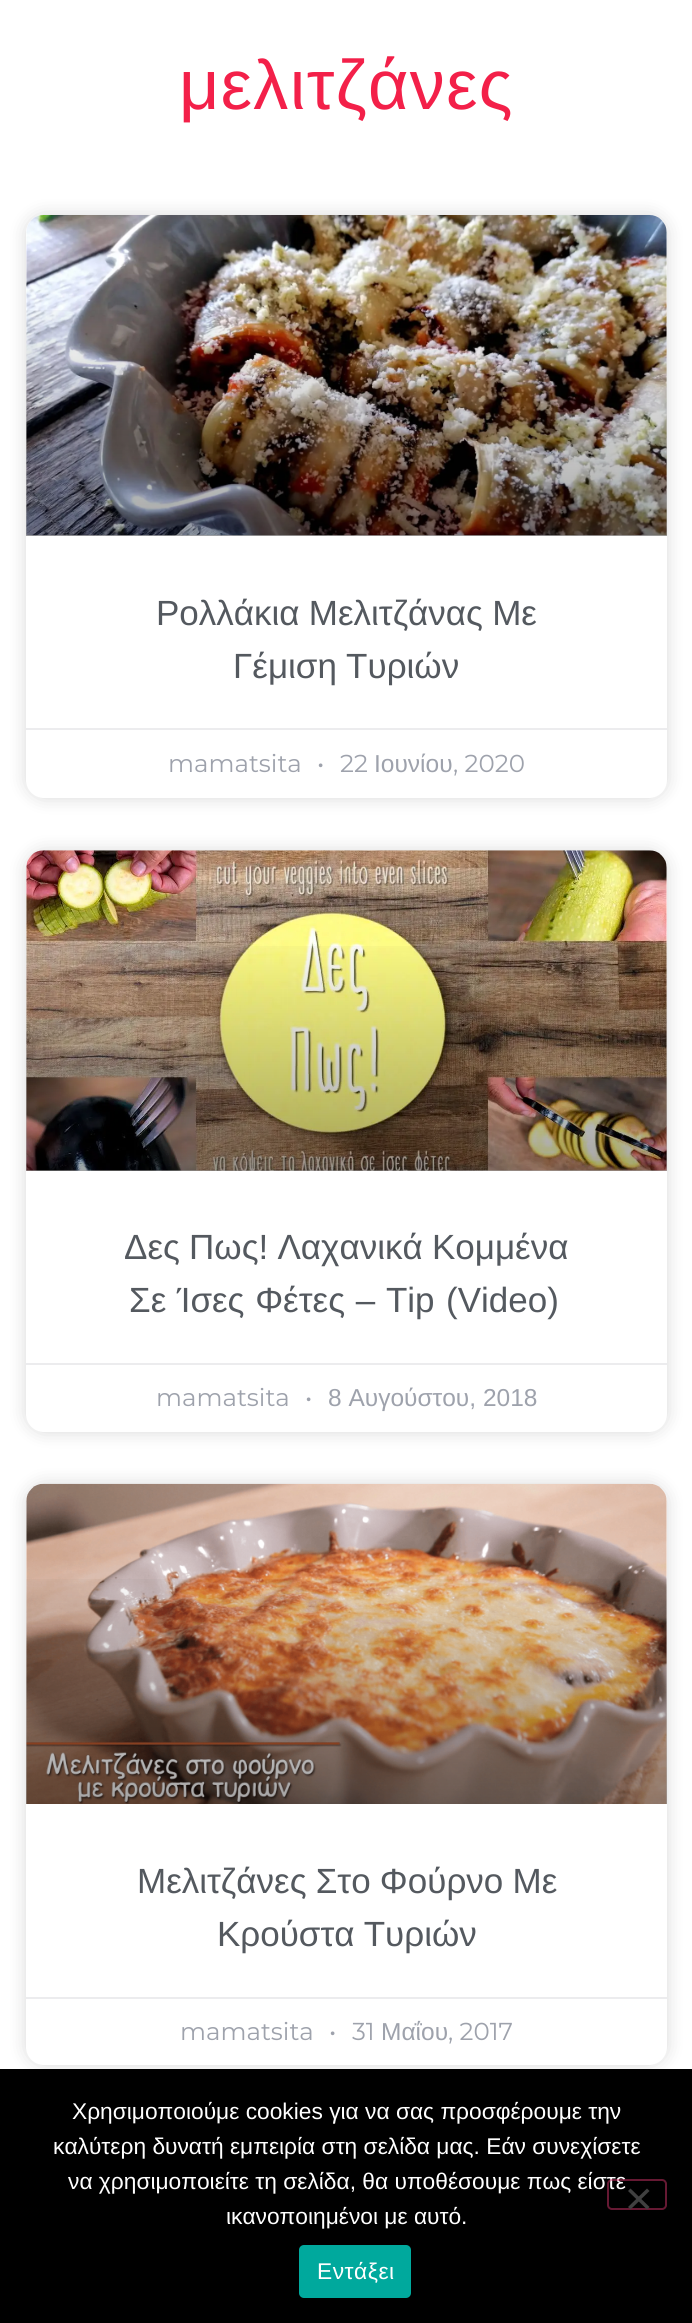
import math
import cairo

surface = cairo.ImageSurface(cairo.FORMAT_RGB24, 692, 2323)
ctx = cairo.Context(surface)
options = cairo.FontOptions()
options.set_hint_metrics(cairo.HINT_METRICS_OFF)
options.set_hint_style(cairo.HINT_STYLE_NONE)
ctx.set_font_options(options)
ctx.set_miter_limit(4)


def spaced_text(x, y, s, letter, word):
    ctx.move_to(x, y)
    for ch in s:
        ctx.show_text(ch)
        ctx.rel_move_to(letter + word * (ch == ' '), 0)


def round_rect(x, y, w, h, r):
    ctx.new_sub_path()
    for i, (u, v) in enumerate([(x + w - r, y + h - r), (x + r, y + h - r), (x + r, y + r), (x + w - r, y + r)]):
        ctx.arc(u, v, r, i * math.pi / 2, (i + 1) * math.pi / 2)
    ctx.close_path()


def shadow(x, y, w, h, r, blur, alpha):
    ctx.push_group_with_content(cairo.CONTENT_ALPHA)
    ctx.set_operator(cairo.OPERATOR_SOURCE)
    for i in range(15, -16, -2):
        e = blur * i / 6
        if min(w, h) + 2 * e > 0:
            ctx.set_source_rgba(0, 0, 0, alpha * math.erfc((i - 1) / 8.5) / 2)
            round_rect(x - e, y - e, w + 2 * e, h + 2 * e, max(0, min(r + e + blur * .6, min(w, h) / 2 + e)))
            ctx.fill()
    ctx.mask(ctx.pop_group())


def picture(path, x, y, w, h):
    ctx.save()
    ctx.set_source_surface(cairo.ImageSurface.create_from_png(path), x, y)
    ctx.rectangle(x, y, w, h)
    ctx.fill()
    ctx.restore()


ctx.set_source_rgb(1, 1, 1)
ctx.paint()
ctx.select_font_face("Liberation Sans")
ctx.set_font_size(70)
ctx.set_source_rgb(0.953, 0.125, 0.286)
spaced_text(179, 109, "μελιτζάνες", 1.4, 0)
ctx.set_source_rgb(0, 0, 0)
shadow(26, 215, 641, 583, 18, 9, 0.15)
ctx.set_source_rgb(1, 1, 1)
round_rect(26, 215, 641, 583, 18)
ctx.fill()
picture("img1.png", 26, 215, 641, 321)
gradient = cairo.LinearGradient(347, 536, 347, 215)
gradient.add_color_stop_rgba(0, 0, 0, 0, 0.35)
gradient.add_color_stop_rgba(0.75, 0, 0, 0, 0)
ctx.set_source(gradient)
ctx.rectangle(26, 310, 641, 226)
ctx.fill()
ctx.set_font_size(35)
ctx.set_source_rgb(0.329, 0.349, 0.373)
spaced_text(156, 625, "Ρολλάκια Μελιτζάνας Με", 0, -0.5)
spaced_text(233, 678, "Γέμιση Τυριών", 0, -0.5)
ctx.set_source_rgb(0.925, 0.925, 0.933)
ctx.rectangle(26, 728, 641, 2)
ctx.fill()
ctx.select_font_face("Montserrat")
ctx.set_font_size(24.5)
ctx.set_source_rgb(0.62, 0.635, 0.675)
ctx.move_to(168, 772)
ctx.show_text("mamatsita")
ctx.move_to(317, 772)
ctx.show_text("•")
ctx.move_to(340, 772)
ctx.show_text("22")
ctx.select_font_face("Liberation Sans")
ctx.move_to(374, 772)
ctx.show_text("Ιουνίου")
ctx.select_font_face("Montserrat")
ctx.move_to(453, 772)
ctx.show_text(", 2020")
ctx.set_source_rgb(0, 0, 0)
shadow(26, 851, 641, 581, 18, 9, 0.15)
ctx.set_source_rgb(1, 1, 1)
round_rect(26, 851, 641, 581, 18)
ctx.fill()
picture("img2.png", 26, 850, 641, 321)
gradient = cairo.LinearGradient(347, 1171, 347, 851)
gradient.add_color_stop_rgba(0, 0, 0, 0, 0.35)
gradient.add_color_stop_rgba(0.75, 0, 0, 0, 0)
ctx.set_source(gradient)
ctx.rectangle(26, 946, 641, 225)
ctx.fill()
ctx.select_font_face("Liberation Sans")
ctx.set_font_size(35)
ctx.set_source_rgb(0.329, 0.349, 0.373)
spaced_text(124, 1259, "Δες Πως! Λαχανικά Κομμένα", 0, -0.5)
spaced_text(129, 1312, "Σε Ίσες Φέτες – Tip", 0, 1)
ctx.move_to(446, 1312)
ctx.show_text("(Video)")
ctx.set_source_rgb(0.925, 0.925, 0.933)
ctx.rectangle(26, 1363, 641, 2)
ctx.fill()
ctx.select_font_face("Montserrat")
ctx.set_font_size(24.5)
ctx.set_source_rgb(0.62, 0.635, 0.675)
ctx.move_to(156, 1406)
ctx.show_text("mamatsita")
ctx.move_to(305, 1406)
ctx.show_text("•")
ctx.select_font_face("Liberation Sans")
ctx.move_to(328, 1406)
ctx.show_text("8 Αυγούστου, 2018")
ctx.set_source_rgb(0, 0, 0)
shadow(26, 1484, 641, 581, 18, 9, 0.15)
ctx.set_source_rgb(1, 1, 1)
round_rect(26, 1484, 641, 581, 18)
ctx.fill()
picture("img3.png", 26, 1483, 641, 321)
gradient = cairo.LinearGradient(347, 1804, 347, 1484)
gradient.add_color_stop_rgba(0, 0, 0, 0, 0.35)
gradient.add_color_stop_rgba(0.75, 0, 0, 0, 0)
ctx.set_source(gradient)
ctx.rectangle(26, 1579, 641, 225)
ctx.fill()
ctx.set_font_size(35)
ctx.set_source_rgb(0.329, 0.349, 0.373)
spaced_text(137, 1893, "Μελιτζάνες Στο Φούρνο Με", 0, -0.5)
spaced_text(217, 1946, "Κρούστα Τυριών", 0, -0.5)
ctx.set_source_rgb(0.925, 0.925, 0.933)
ctx.rectangle(26, 1997, 641, 2)
ctx.fill()
ctx.select_font_face("Montserrat")
ctx.set_font_size(24.5)
ctx.set_source_rgb(0.62, 0.635, 0.675)
ctx.move_to(180, 2040)
ctx.show_text("mamatsita")
ctx.move_to(329, 2040)
ctx.show_text("•")
ctx.move_to(352, 2040)
ctx.show_text("31")
ctx.select_font_face("Liberation Sans")
ctx.move_to(381, 2040)
ctx.show_text("Μαΐου")
ctx.select_font_face("Montserrat")
ctx.move_to(448, 2040)
ctx.show_text(", 2017")
ctx.set_source_rgb(0, 0, 0)
ctx.rectangle(0, 2069, 692, 254)
ctx.fill()
ctx.select_font_face("Liberation Sans")
ctx.set_font_size(22.75)
ctx.set_source_rgb(1, 1, 1)
ctx.move_to(72, 2119)
ctx.show_text("Χρησιμοποιούμε cookies για να σας προσφέρουμε την")
ctx.move_to(53, 2154)
ctx.show_text("καλύτερη δυνατή εμπειρία στη σελίδα μας. Εάν συνεχίσετε")
ctx.move_to(68, 2189)
ctx.show_text("να χρησιμοποιείτε τη σελίδα, θα υποθέσουμε πως είστε")
ctx.move_to(226, 2224)
ctx.show_text("ικανοποιημένοι με αυτό.")
round_rect(608, 2180, 58, 29, 4)
ctx.set_source_rgba(0.8, 0.2, 0.4, 0.5)
ctx.stroke()
ctx.set_source_rgb(0.251, 0.251, 0.251)
ctx.new_path()
ctx.move_to(647, 2188.5)
ctx.line_to(649.5, 2191)
ctx.line_to(630.5, 2209.5)
ctx.line_to(628, 2207)
ctx.close_path()
ctx.fill()
ctx.new_path()
ctx.move_to(628, 2191)
ctx.line_to(630.5, 2188.5)
ctx.line_to(649.5, 2207)
ctx.line_to(647, 2209.5)
ctx.close_path()
ctx.fill()
ctx.set_source_rgb(0, 0.663, 0.616)
round_rect(299, 2245, 112, 53, 5)
ctx.fill()
ctx.set_source_rgb(1, 1, 1)
spaced_text(317, 2279, "Εντάξει", 0.5, 0)
surface.write_to_png("page.png")
